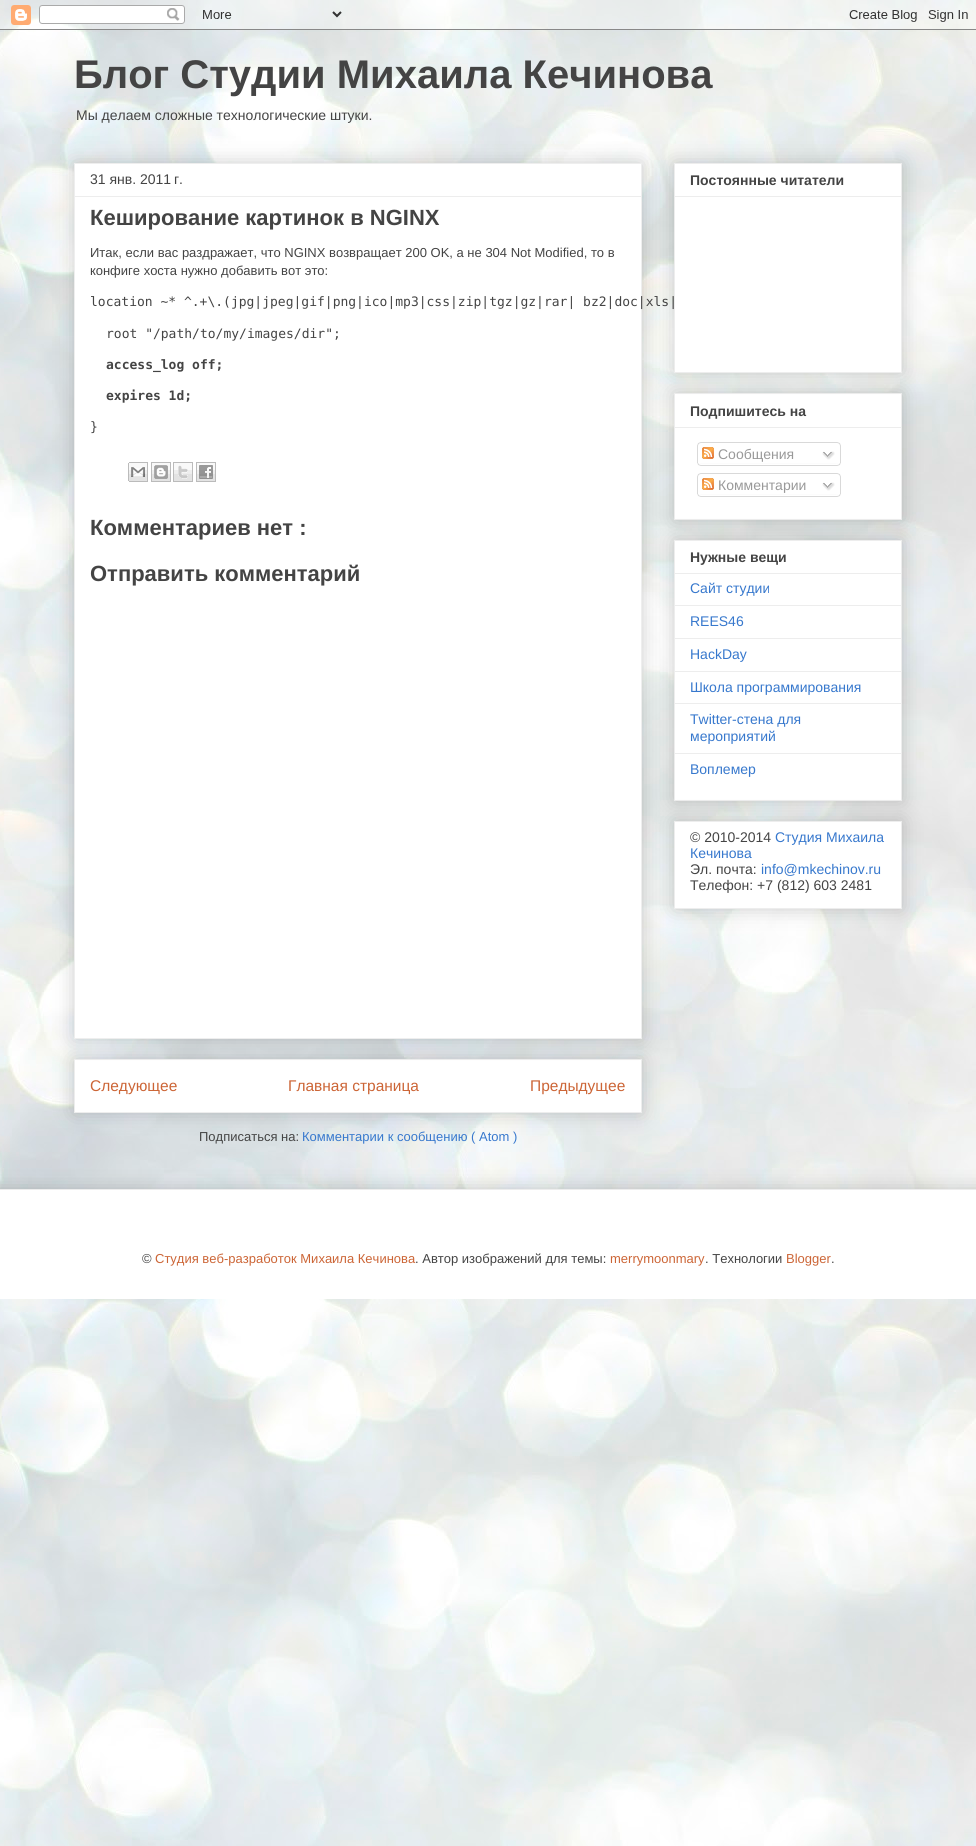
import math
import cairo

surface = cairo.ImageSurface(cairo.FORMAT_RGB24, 976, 1846)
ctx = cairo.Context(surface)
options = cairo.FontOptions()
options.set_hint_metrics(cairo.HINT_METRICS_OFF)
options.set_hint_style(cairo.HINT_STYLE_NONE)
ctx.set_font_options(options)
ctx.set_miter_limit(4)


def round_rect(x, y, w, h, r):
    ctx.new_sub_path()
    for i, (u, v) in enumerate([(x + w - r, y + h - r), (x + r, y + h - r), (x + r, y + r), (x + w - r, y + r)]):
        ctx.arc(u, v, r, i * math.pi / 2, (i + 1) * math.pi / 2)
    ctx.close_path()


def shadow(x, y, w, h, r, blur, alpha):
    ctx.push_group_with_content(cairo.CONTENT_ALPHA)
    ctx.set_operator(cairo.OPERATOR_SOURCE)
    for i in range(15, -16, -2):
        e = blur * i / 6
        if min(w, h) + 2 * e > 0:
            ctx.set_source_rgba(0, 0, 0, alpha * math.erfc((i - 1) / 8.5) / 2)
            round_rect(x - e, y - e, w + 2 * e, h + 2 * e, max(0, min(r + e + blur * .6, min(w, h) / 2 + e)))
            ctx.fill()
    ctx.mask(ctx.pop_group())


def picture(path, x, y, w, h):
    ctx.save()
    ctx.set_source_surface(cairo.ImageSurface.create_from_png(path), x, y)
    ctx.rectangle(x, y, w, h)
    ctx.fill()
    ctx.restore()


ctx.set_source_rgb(1, 1, 1)
ctx.paint()
picture("img1.png", 0, 0, 976, 1846)
picture("img2.png", 0, 0, 976, 30)
ctx.select_font_face("Liberation Sans", cairo.FONT_SLANT_NORMAL, cairo.FONT_WEIGHT_BOLD)
ctx.set_font_size(40)
ctx.set_source_rgb(0.267, 0.267, 0.267)
ctx.move_to(74, 88)
ctx.show_text("Блог Студии Михаила Кечинова")
ctx.select_font_face("Liberation Sans")
ctx.set_font_size(14)
ctx.move_to(76, 120)
ctx.show_text("Мы делаем сложные технологические штуки.")
ctx.set_source_rgb(0, 0, 0)
shadow(74, 1059, 568, 54, 0, 10, 0.2)
ctx.set_source_rgb(1, 1, 1)
ctx.rectangle(74.5, 1059.5, 567, 53)
ctx.fill_preserve()
ctx.set_source_rgb(0.929, 0.929, 0.929)
ctx.set_line_width(1)
ctx.stroke()
ctx.set_source_rgb(0, 0, 0)
shadow(74, 163, 568, 876, 0, 10, 0.2)
ctx.set_source_rgb(1, 1, 1)
ctx.rectangle(74.5, 163.5, 567, 875)
ctx.fill_preserve()
ctx.set_source_rgb(0.933, 0.933, 0.933)
ctx.stroke()
ctx.set_source_rgb(0.267, 0.267, 0.267)
ctx.move_to(90, 184)
ctx.show_text("31 янв. 2011 г.")
ctx.set_source_rgb(0.929, 0.929, 0.929)
ctx.rectangle(75, 196, 566, 1)
ctx.fill()
ctx.select_font_face("Liberation Sans", cairo.FONT_SLANT_NORMAL, cairo.FONT_WEIGHT_BOLD)
ctx.set_font_size(22)
ctx.set_source_rgb(0.267, 0.267, 0.267)
ctx.move_to(90, 225)
ctx.show_text("Кеширование картинок в NGINX")
ctx.select_font_face("Liberation Sans")
ctx.set_font_size(13)
ctx.move_to(90, 257)
ctx.show_text("Итак, если вас раздражает, что NGINX возвращает 200 OK, а не 304 Not Modified, то в")
ctx.move_to(90, 275)
ctx.show_text("конфиге хоста нужно добавить вот это:")
ctx.select_font_face("DejaVu Sans Mono")
ctx.move_to(90, 306)
ctx.show_text("location ~* ^.+\\.(jpg|jpeg|gif|png|ico|mp3|css|zip|tgz|gz|rar| bz2|doc|xls|")
ctx.move_to(106, 338)
ctx.show_text("root \"/path/to/my/images/dir\";")
ctx.select_font_face("DejaVu Sans Mono", cairo.FONT_SLANT_NORMAL, cairo.FONT_WEIGHT_BOLD)
ctx.move_to(106, 369)
ctx.show_text("access_log off;")
ctx.move_to(106, 400)
ctx.show_text("expires 1d;")
ctx.select_font_face("DejaVu Sans Mono")
ctx.move_to(90, 431)
ctx.show_text("}")
picture("img3.png", 128, 462, 20, 20)
picture("img4.png", 151, 462, 20, 20)
picture("img5.png", 173, 462, 20, 20)
picture("img6.png", 196, 462, 20, 20)
ctx.select_font_face("Liberation Sans", cairo.FONT_SLANT_NORMAL, cairo.FONT_WEIGHT_BOLD)
ctx.set_font_size(22)
ctx.move_to(90, 535)
ctx.show_text("Комментариев нет :")
ctx.move_to(90, 581)
ctx.show_text("Отправить комментарий")
ctx.select_font_face("Liberation Sans")
ctx.set_font_size(15.5)
ctx.set_source_rgb(0.8, 0.396, 0.212)
ctx.move_to(90, 1091)
ctx.show_text("Следующее")
ctx.move_to(288, 1091)
ctx.show_text("Главная страница")
ctx.move_to(530, 1091)
ctx.show_text("Предыдущее")
ctx.set_font_size(13)
ctx.set_source_rgb(0.267, 0.267, 0.267)
ctx.move_to(199, 1141)
ctx.show_text("Подписаться на:")
ctx.set_source_rgb(0.216, 0.471, 0.804)
ctx.move_to(302, 1141)
ctx.show_text("Комментарии к сообщению ( Atom )")
ctx.set_source_rgb(0, 0, 0)
shadow(674, 393, 228, 127, 0, 10, 0.2)
ctx.set_source_rgb(1, 1, 1)
ctx.rectangle(674.5, 393.5, 227, 126)
ctx.fill_preserve()
ctx.set_source_rgb(0.929, 0.929, 0.929)
ctx.stroke()
ctx.set_source_rgb(0, 0, 0)
shadow(674, 163, 228, 210, 0, 10, 0.2)
ctx.set_source_rgb(1, 1, 1)
ctx.rectangle(674.5, 163.5, 227, 209)
ctx.fill_preserve()
ctx.set_source_rgb(0.929, 0.929, 0.929)
ctx.stroke()
ctx.select_font_face("Liberation Sans", cairo.FONT_SLANT_NORMAL, cairo.FONT_WEIGHT_BOLD)
ctx.set_font_size(14)
ctx.set_source_rgb(0.267, 0.267, 0.267)
ctx.move_to(690, 185)
ctx.show_text("Постоянные читатели")
ctx.set_source_rgb(0.929, 0.929, 0.929)
ctx.rectangle(675, 196, 226, 1)
ctx.fill()
ctx.set_source_rgb(0.267, 0.267, 0.267)
ctx.move_to(690, 416)
ctx.show_text("Подпишитесь на")
ctx.set_source_rgb(0.929, 0.929, 0.929)
ctx.rectangle(675, 427, 226, 1)
ctx.fill()
picture("img7.png", 697, 442, 144, 21)
picture("img8.png", 702, 447, 12, 12)
ctx.select_font_face("Liberation Sans")
ctx.set_source_rgb(0.6, 0.6, 0.6)
ctx.move_to(718, 459)
ctx.show_text("Сообщения")
picture("img9.png", 822, 451, 13, 9)
picture("img10.png", 697, 463, 144, 3)
picture("img7.png", 697, 473, 144, 21)
picture("img8.png", 702, 478, 12, 12)
ctx.move_to(718, 490)
ctx.show_text("Комментарии")
picture("img9.png", 822, 482, 13, 9)
picture("img10.png", 697, 494, 144, 3)
ctx.set_source_rgb(0, 0, 0)
shadow(674, 540, 228, 261, 0, 10, 0.2)
ctx.set_source_rgb(1, 1, 1)
ctx.rectangle(674.5, 540.5, 227, 260)
ctx.fill_preserve()
ctx.set_source_rgb(0.929, 0.929, 0.929)
ctx.stroke()
ctx.select_font_face("Liberation Sans", cairo.FONT_SLANT_NORMAL, cairo.FONT_WEIGHT_BOLD)
ctx.set_source_rgb(0.267, 0.267, 0.267)
ctx.move_to(690, 562)
ctx.show_text("Нужные вещи")
ctx.set_source_rgb(0.929, 0.929, 0.929)
ctx.rectangle(675, 573, 226, 1)
ctx.fill()
ctx.select_font_face("Liberation Sans")
ctx.set_source_rgb(0.216, 0.471, 0.804)
ctx.move_to(690, 593)
ctx.show_text("Сайт студии")
ctx.set_source_rgb(0.929, 0.929, 0.929)
ctx.rectangle(675, 605, 226, 1)
ctx.fill()
ctx.set_source_rgb(0.216, 0.471, 0.804)
ctx.move_to(690, 626)
ctx.show_text("REES46")
ctx.set_source_rgb(0.929, 0.929, 0.929)
ctx.rectangle(675, 638, 226, 1)
ctx.fill()
ctx.set_source_rgb(0.216, 0.471, 0.804)
ctx.move_to(690, 659)
ctx.show_text("HackDay")
ctx.set_source_rgb(0.929, 0.929, 0.929)
ctx.rectangle(675, 671, 226, 1)
ctx.fill()
ctx.set_source_rgb(0.216, 0.471, 0.804)
ctx.move_to(690, 692)
ctx.show_text("Школа программирования")
ctx.set_source_rgb(0.929, 0.929, 0.929)
ctx.rectangle(675, 703, 226, 1)
ctx.fill()
ctx.set_source_rgb(0.216, 0.471, 0.804)
ctx.move_to(690, 724)
ctx.show_text("Twitter-стена для")
ctx.move_to(690, 741)
ctx.show_text("мероприятий")
ctx.set_source_rgb(0.929, 0.929, 0.929)
ctx.rectangle(675, 753, 226, 1)
ctx.fill()
ctx.set_source_rgb(0.216, 0.471, 0.804)
ctx.move_to(690, 774)
ctx.show_text("Воплемер")
ctx.set_source_rgb(0, 0, 0)
shadow(674, 821, 228, 88, 0, 10, 0.2)
ctx.set_source_rgb(1, 1, 1)
ctx.rectangle(674.5, 821.5, 227, 87)
ctx.fill_preserve()
ctx.set_source_rgb(0.929, 0.929, 0.929)
ctx.stroke()
ctx.set_source_rgb(0.267, 0.267, 0.267)
ctx.move_to(690, 842)
ctx.show_text("© 2010-2014")
ctx.set_source_rgb(0.216, 0.471, 0.804)
ctx.move_to(775, 842)
ctx.show_text("Студия Михаила")
ctx.move_to(690, 858)
ctx.show_text("Кечинова")
ctx.set_source_rgb(0.267, 0.267, 0.267)
ctx.move_to(690, 874)
ctx.show_text("Эл. почта:")
ctx.set_source_rgb(0.216, 0.471, 0.804)
ctx.move_to(761, 874)
ctx.show_text("info@mkechinov.ru")
ctx.set_source_rgb(0.267, 0.267, 0.267)
ctx.move_to(690, 890)
ctx.show_text("Телефон: +7 (812) 603 2481")
ctx.save()
ctx.rectangle(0, 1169, 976, 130)
ctx.clip()
ctx.set_source_rgb(0, 0, 0)
shadow(-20, 1189, 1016, 110, 0, 10, 0.2)
ctx.restore()
ctx.set_source_rgb(1, 1, 1)
ctx.rectangle(0, 1190, 976, 109)
ctx.fill()
ctx.set_source_rgb(0.929, 0.929, 0.929)
ctx.rectangle(0, 1189, 976, 1)
ctx.fill()
ctx.set_font_size(13)
ctx.set_source_rgb(0.267, 0.267, 0.267)
ctx.move_to(142, 1263)
ctx.show_text("©")
ctx.set_source_rgb(0.8, 0.396, 0.212)
ctx.move_to(155, 1263)
ctx.show_text("Студия веб-разработок Михаила Кечинова")
ctx.set_source_rgb(0.267, 0.267, 0.267)
ctx.move_to(415, 1263)
ctx.show_text(". Автор изображений для темы:")
ctx.set_source_rgb(0.8, 0.396, 0.212)
ctx.move_to(610, 1263)
ctx.show_text("merrymoonmary")
ctx.set_source_rgb(0.267, 0.267, 0.267)
ctx.move_to(705, 1263)
ctx.show_text(". Технологии")
ctx.set_source_rgb(0.8, 0.396, 0.212)
ctx.move_to(786, 1263)
ctx.show_text("Blogger")
ctx.set_source_rgb(0.267, 0.267, 0.267)
ctx.move_to(831, 1263)
ctx.show_text(".")
surface.write_to_png("page.png")
